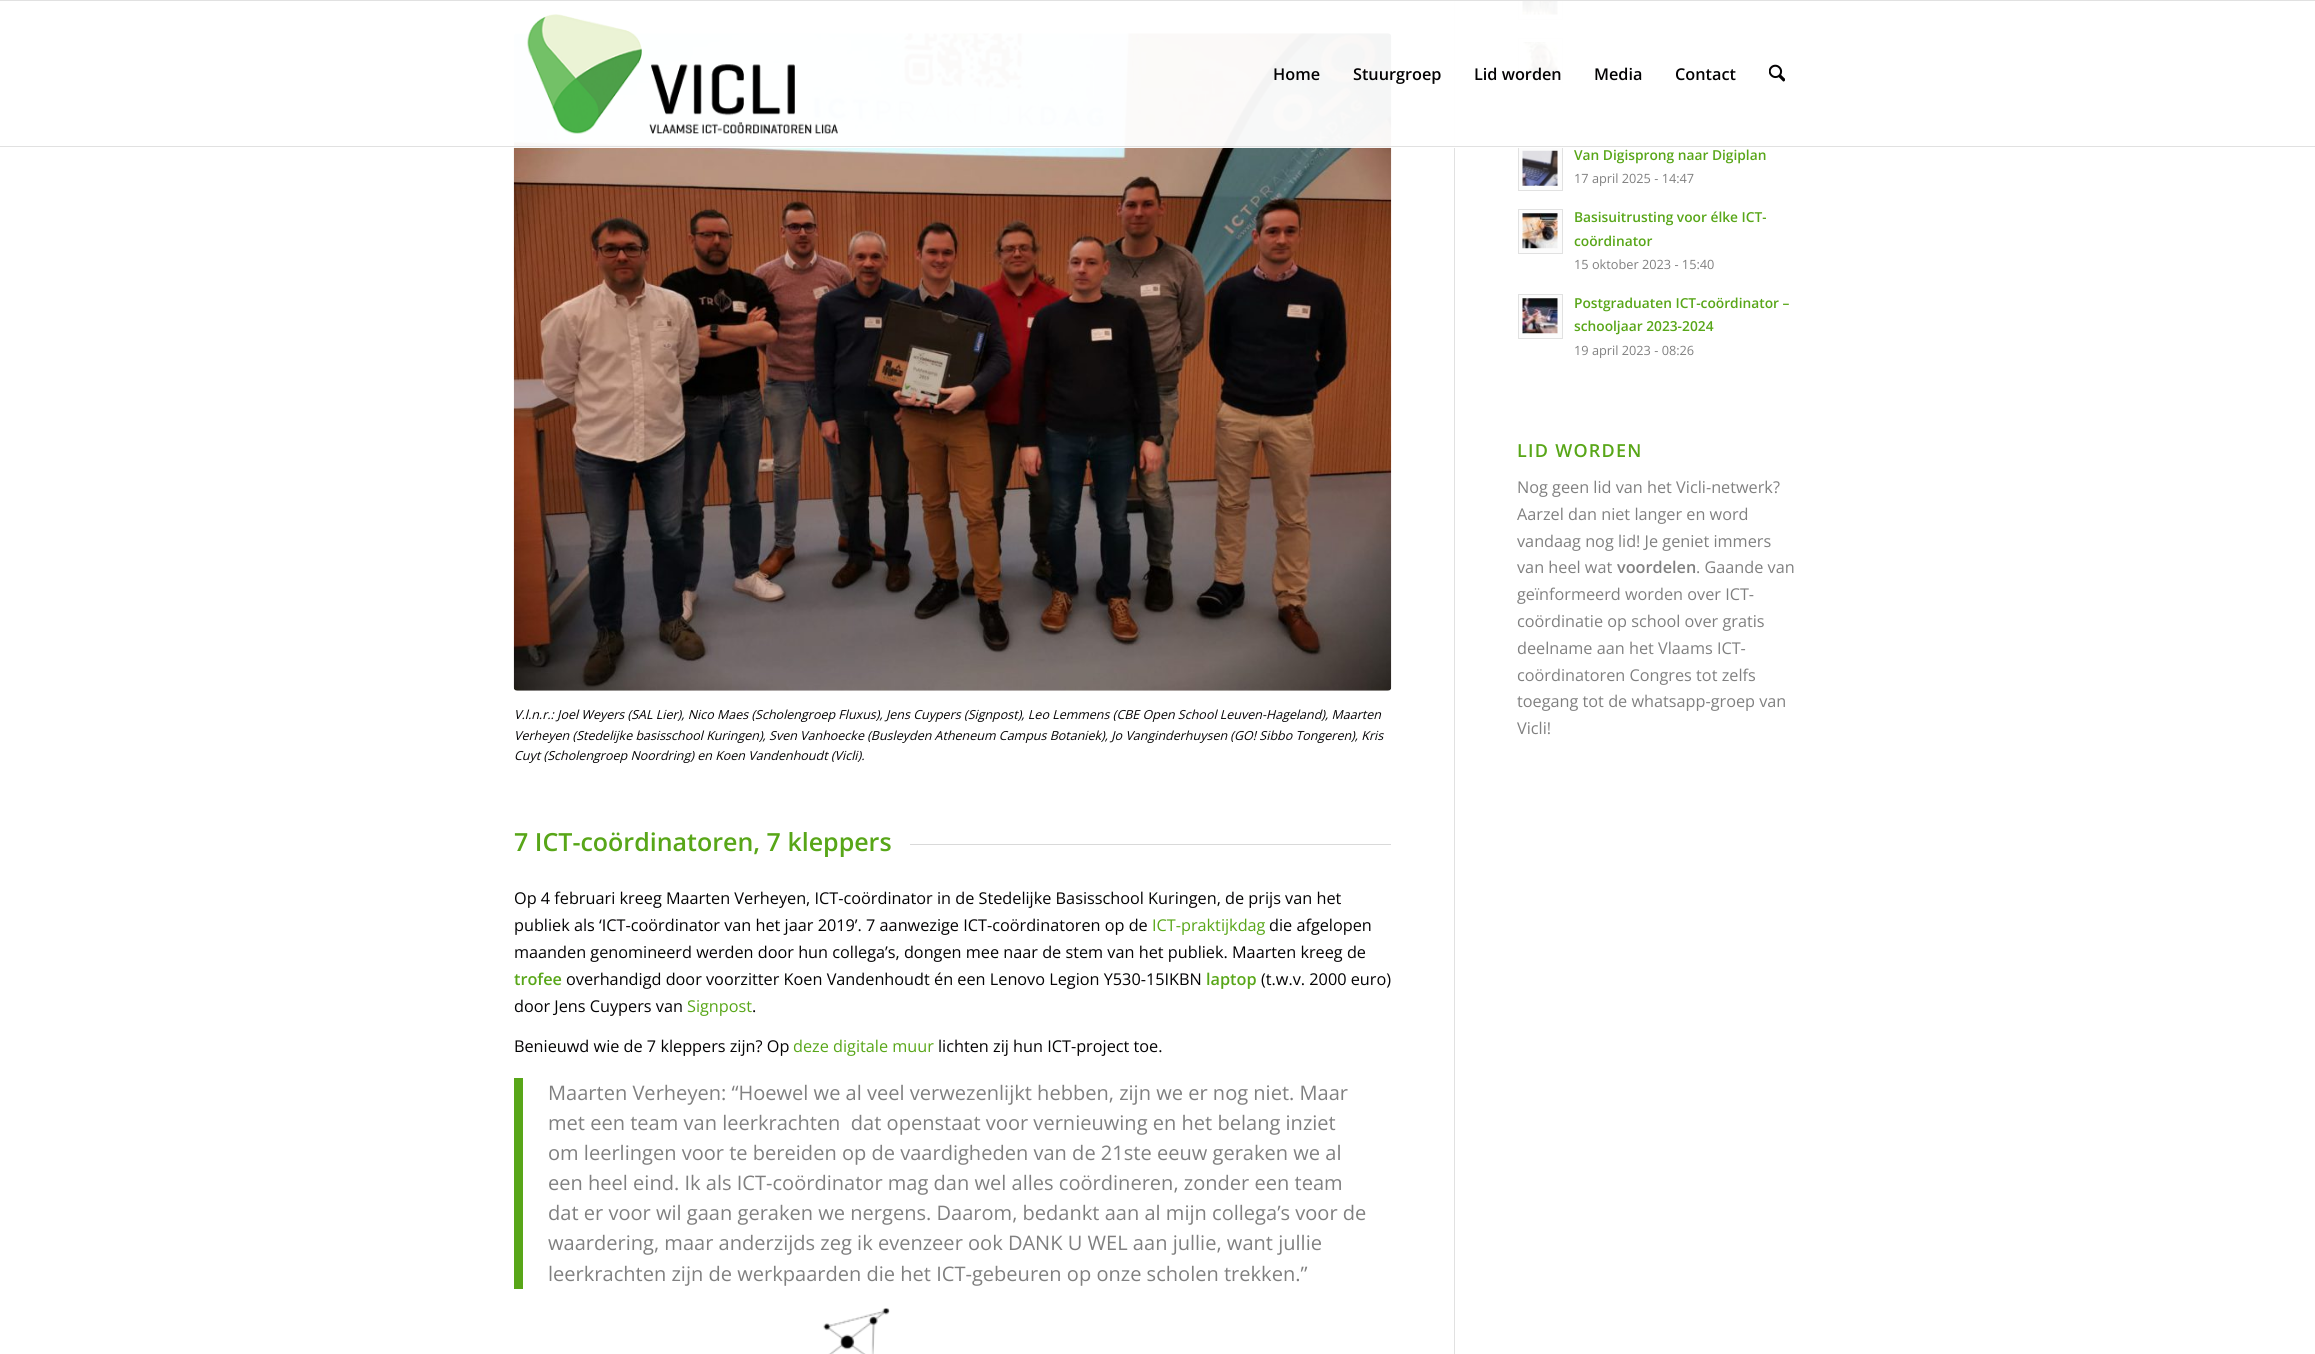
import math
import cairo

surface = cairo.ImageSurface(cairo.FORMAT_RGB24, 2315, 1354)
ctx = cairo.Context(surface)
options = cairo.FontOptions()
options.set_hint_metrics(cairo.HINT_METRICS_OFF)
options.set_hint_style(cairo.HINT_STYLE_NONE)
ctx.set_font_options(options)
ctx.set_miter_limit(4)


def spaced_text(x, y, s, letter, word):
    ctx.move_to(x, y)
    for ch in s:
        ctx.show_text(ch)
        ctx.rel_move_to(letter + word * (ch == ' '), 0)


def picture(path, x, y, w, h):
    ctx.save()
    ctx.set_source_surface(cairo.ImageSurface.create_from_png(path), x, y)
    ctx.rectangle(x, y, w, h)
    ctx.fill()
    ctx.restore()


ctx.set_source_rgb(1, 1, 1)
ctx.paint()
ctx.set_source_rgb(0.988, 0.988, 0.988)
ctx.rectangle(1519, 1, 43, 18)
ctx.fill()
ctx.rectangle(1518.5, -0.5, 44, 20)
ctx.set_source_rgb(0.882, 0.882, 0.882)
ctx.set_line_width(1)
ctx.stroke()
picture("img3.png", 1522, 1, 36, 14)
ctx.set_source_rgb(0.988, 0.988, 0.988)
ctx.rectangle(1518.5, 38.5, 44, 44)
ctx.fill_preserve()
ctx.set_source_rgb(0.882, 0.882, 0.882)
ctx.stroke()
picture("img4.png", 1522, 42, 36, 35)
ctx.set_source_rgb(0.988, 0.988, 0.988)
ctx.rectangle(1518.5, 146.5, 44, 44)
ctx.fill_preserve()
ctx.set_source_rgb(0.882, 0.882, 0.882)
ctx.stroke()
ctx.rectangle(1454, 0, 1, 1354)
ctx.fill()
picture("img8.png", 513, 33, 879, 658)
ctx.set_source_rgba(1, 1, 1, 0.95)
ctx.rectangle(513, 1, 1050, 147)
ctx.fill()
ctx.set_source_rgb(0.882, 0.882, 0.882)
ctx.rectangle(0, 0, 2315, 1)
ctx.fill()
ctx.rectangle(0, 146, 2315, 1)
ctx.fill()
picture("img1.png", 527, 14, 311, 120)
ctx.select_font_face("Open Sans SemiBold")
ctx.set_font_size(16.25)
ctx.set_source_rgb(0.012, 0.008, 0.012)
ctx.move_to(1273, 80)
ctx.show_text("Home")
ctx.move_to(1353, 80)
ctx.show_text("Stuurgroep")
ctx.move_to(1474, 80)
ctx.show_text("Lid worden")
ctx.move_to(1594, 80)
ctx.show_text("Media")
ctx.move_to(1675, 80)
ctx.show_text("Contact")
picture("img2.png", 1769, 64, 16, 18)
picture("img5.png", 1522, 150, 36, 36)
ctx.set_font_size(13.75)
ctx.set_source_rgb(0.345, 0.651, 0.094)
ctx.move_to(1574, 160)
ctx.show_text("Van Digisprong naar Digiplan")
ctx.select_font_face("Open Sans")
ctx.set_font_size(12.75)
ctx.set_source_rgb(0.502, 0.502, 0.502)
ctx.move_to(1574, 183)
ctx.show_text("17 april 2025 - 14:47")
ctx.set_source_rgb(0.988, 0.988, 0.988)
ctx.rectangle(1518.5, 209.5, 44, 44)
ctx.fill_preserve()
ctx.set_source_rgb(0.882, 0.882, 0.882)
ctx.stroke()
picture("img6.png", 1522, 213, 36, 36)
ctx.select_font_face("Open Sans SemiBold")
ctx.set_font_size(13.75)
ctx.set_source_rgb(0.345, 0.651, 0.094)
ctx.move_to(1574, 222)
ctx.show_text("Basisuitrusting voor élke ICT-")
ctx.move_to(1574, 246)
ctx.show_text("coördinator")
ctx.select_font_face("Open Sans")
ctx.set_font_size(12.75)
ctx.set_source_rgb(0.502, 0.502, 0.502)
ctx.move_to(1574, 269)
ctx.show_text("15 oktober 2023 - 15:40")
ctx.set_source_rgb(0.988, 0.988, 0.988)
ctx.rectangle(1518.5, 294.5, 44, 44)
ctx.fill_preserve()
ctx.set_source_rgb(0.882, 0.882, 0.882)
ctx.stroke()
picture("img7.png", 1522, 298, 36, 36)
ctx.select_font_face("Open Sans SemiBold")
ctx.set_font_size(13.75)
ctx.set_source_rgb(0.345, 0.651, 0.094)
ctx.move_to(1574, 308)
ctx.show_text("Postgraduaten ICT-coördinator –")
ctx.move_to(1574, 331)
ctx.show_text("schooljaar 2023-2024")
ctx.select_font_face("Open Sans")
ctx.set_font_size(12.75)
ctx.set_source_rgb(0.502, 0.502, 0.502)
ctx.move_to(1574, 355)
ctx.show_text("19 april 2023 - 08:26")
ctx.select_font_face("Open Sans SemiBold")
ctx.set_font_size(18)
ctx.set_source_rgb(0.345, 0.651, 0.094)
spaced_text(1517, 457, "LID WORDEN", 1.25, 0)
ctx.select_font_face("Open Sans")
ctx.set_font_size(16.25)
ctx.set_source_rgb(0.502, 0.502, 0.502)
ctx.move_to(1517, 493)
ctx.show_text("Nog geen lid van het Vicli-netwerk?")
ctx.move_to(1517, 520)
ctx.show_text("Aarzel dan niet langer en word")
ctx.move_to(1517, 547)
ctx.show_text("vandaag nog lid! Je geniet immers")
ctx.move_to(1517, 573)
ctx.show_text("van heel wat")
ctx.select_font_face("Open Sans SemiBold")
ctx.move_to(1617, 573)
ctx.show_text("voordelen")
ctx.select_font_face("Open Sans")
ctx.move_to(1696, 573)
ctx.show_text(". Gaande van")
ctx.move_to(1517, 600)
ctx.show_text("geïnformeerd worden over ICT-")
ctx.move_to(1517, 627)
ctx.show_text("coördinatie op school over gratis")
ctx.move_to(1517, 654)
ctx.show_text("deelname aan het Vlaams ICT-")
ctx.move_to(1517, 681)
ctx.show_text("coördinatoren Congres tot zelfs")
ctx.move_to(1517, 707)
ctx.show_text("toegang tot de whatsapp-groep van")
ctx.move_to(1517, 734)
ctx.show_text("Vicli!")
ctx.select_font_face("Open Sans", cairo.FONT_SLANT_ITALIC)
ctx.set_font_size(12.5)
ctx.set_source_rgb(0.012, 0.008, 0.012)
ctx.move_to(514, 719)
ctx.show_text("V.l.n.r.: Joel Weyers (SAL Lier), Nico Maes (Scholengroep Fluxus), Jens Cuypers (Signpost), Leo Lemmens (CBE Open School Leuven-Hageland), Maarten")
ctx.move_to(514, 740)
ctx.show_text("Verheyen (Stedelijke basisschool Kuringen), Sven Vanhoecke (Busleyden Atheneum Campus Botaniek), Jo Vanginderhuysen (GO! Sibbo Tongeren), Kris")
ctx.move_to(514, 760)
ctx.show_text("Cuyt (Scholengroep Noordring) en Koen Vandenhoudt (Vicli).")
ctx.select_font_face("Open Sans SemiBold")
ctx.set_font_size(25)
ctx.set_source_rgb(0.345, 0.651, 0.094)
ctx.move_to(514, 851)
ctx.show_text("7 ICT-coördinatoren, 7 kleppers")
ctx.set_source_rgb(0.851, 0.851, 0.851)
ctx.rectangle(910, 844, 481, 1)
ctx.fill()
ctx.select_font_face("Open Sans")
ctx.set_font_size(16.25)
ctx.set_source_rgb(0.012, 0.008, 0.012)
ctx.move_to(514, 904)
ctx.show_text("Op 4 februari kreeg Maarten Verheyen, ICT-coördinator in de Stedelijke Basisschool Kuringen, de prijs van het")
ctx.move_to(514, 931)
ctx.show_text("publiek als ‘ICT-coördinator van het jaar 2019’. 7 aanwezige ICT-coördinatoren op de")
ctx.set_source_rgb(0.345, 0.651, 0.094)
ctx.move_to(1152, 931)
ctx.show_text("ICT-praktijkdag")
ctx.set_source_rgb(0.012, 0.008, 0.012)
ctx.move_to(1269, 931)
ctx.show_text("die afgelopen")
ctx.move_to(514, 958)
ctx.show_text("maanden genomineerd werden door hun collega’s, dongen mee naar de stem van het publiek. Maarten kreeg de")
ctx.select_font_face("Open Sans SemiBold")
ctx.set_source_rgb(0.345, 0.651, 0.094)
ctx.move_to(514, 985)
ctx.show_text("trofee")
ctx.select_font_face("Open Sans")
ctx.set_source_rgb(0.012, 0.008, 0.012)
ctx.move_to(566, 985)
ctx.show_text("overhandigd door voorzitter Koen Vandenhoudt én een Lenovo Legion Y530-15IKBN")
ctx.select_font_face("Open Sans SemiBold")
ctx.set_source_rgb(0.345, 0.651, 0.094)
ctx.move_to(1206, 985)
ctx.show_text("laptop")
ctx.select_font_face("Open Sans")
ctx.set_source_rgb(0.012, 0.008, 0.012)
ctx.move_to(1261, 985)
ctx.show_text("(t.w.v. 2000 euro)")
ctx.move_to(514, 1012)
ctx.show_text("door Jens Cuypers van")
ctx.set_source_rgb(0.345, 0.651, 0.094)
ctx.move_to(687, 1012)
ctx.show_text("Signpost")
ctx.set_source_rgb(0.012, 0.008, 0.012)
ctx.move_to(752, 1012)
ctx.show_text(".")
ctx.move_to(514, 1052)
ctx.show_text("Benieuwd wie de 7 kleppers zijn? Op")
ctx.set_source_rgb(0.345, 0.651, 0.094)
ctx.move_to(793, 1052)
ctx.show_text("deze digitale muur")
ctx.set_source_rgb(0.012, 0.008, 0.012)
ctx.move_to(938, 1052)
ctx.show_text("lichten zij hun ICT-project toe.")
ctx.set_source_rgb(0.345, 0.651, 0.094)
ctx.rectangle(514, 1078, 9, 211)
ctx.fill()
ctx.set_font_size(20.05)
ctx.set_source_rgb(0.502, 0.502, 0.502)
ctx.move_to(548, 1100)
ctx.show_text("Maarten Verheyen: “Hoewel we al veel verwezenlijkt hebben, zijn we er nog niet. Maar")
ctx.move_to(548, 1130)
ctx.show_text("met een team van leerkrachten  dat openstaat voor vernieuwing en het belang inziet")
ctx.move_to(548, 1160)
ctx.show_text("om leerlingen voor te bereiden op de vaardigheden van de 21ste eeuw geraken we al")
ctx.move_to(548, 1190)
ctx.show_text("een heel eind. Ik als ICT-coördinator mag dan wel alles coördineren, zonder een team")
ctx.move_to(548, 1220)
ctx.show_text("dat er voor wil gaan geraken we nergens. Daarom, bedankt aan al mijn collega’s voor de")
ctx.move_to(548, 1250)
ctx.show_text("waardering, maar anderzijds zeg ik evenzeer ook DANK U WEL aan jullie, want jullie")
ctx.move_to(548, 1281)
ctx.show_text("leerkrachten zijn de werkpaarden die het ICT-gebeuren op onze scholen trekken.”")
picture("img9.png", 823, 1308, 67, 46)
surface.write_to_png("page.png")
